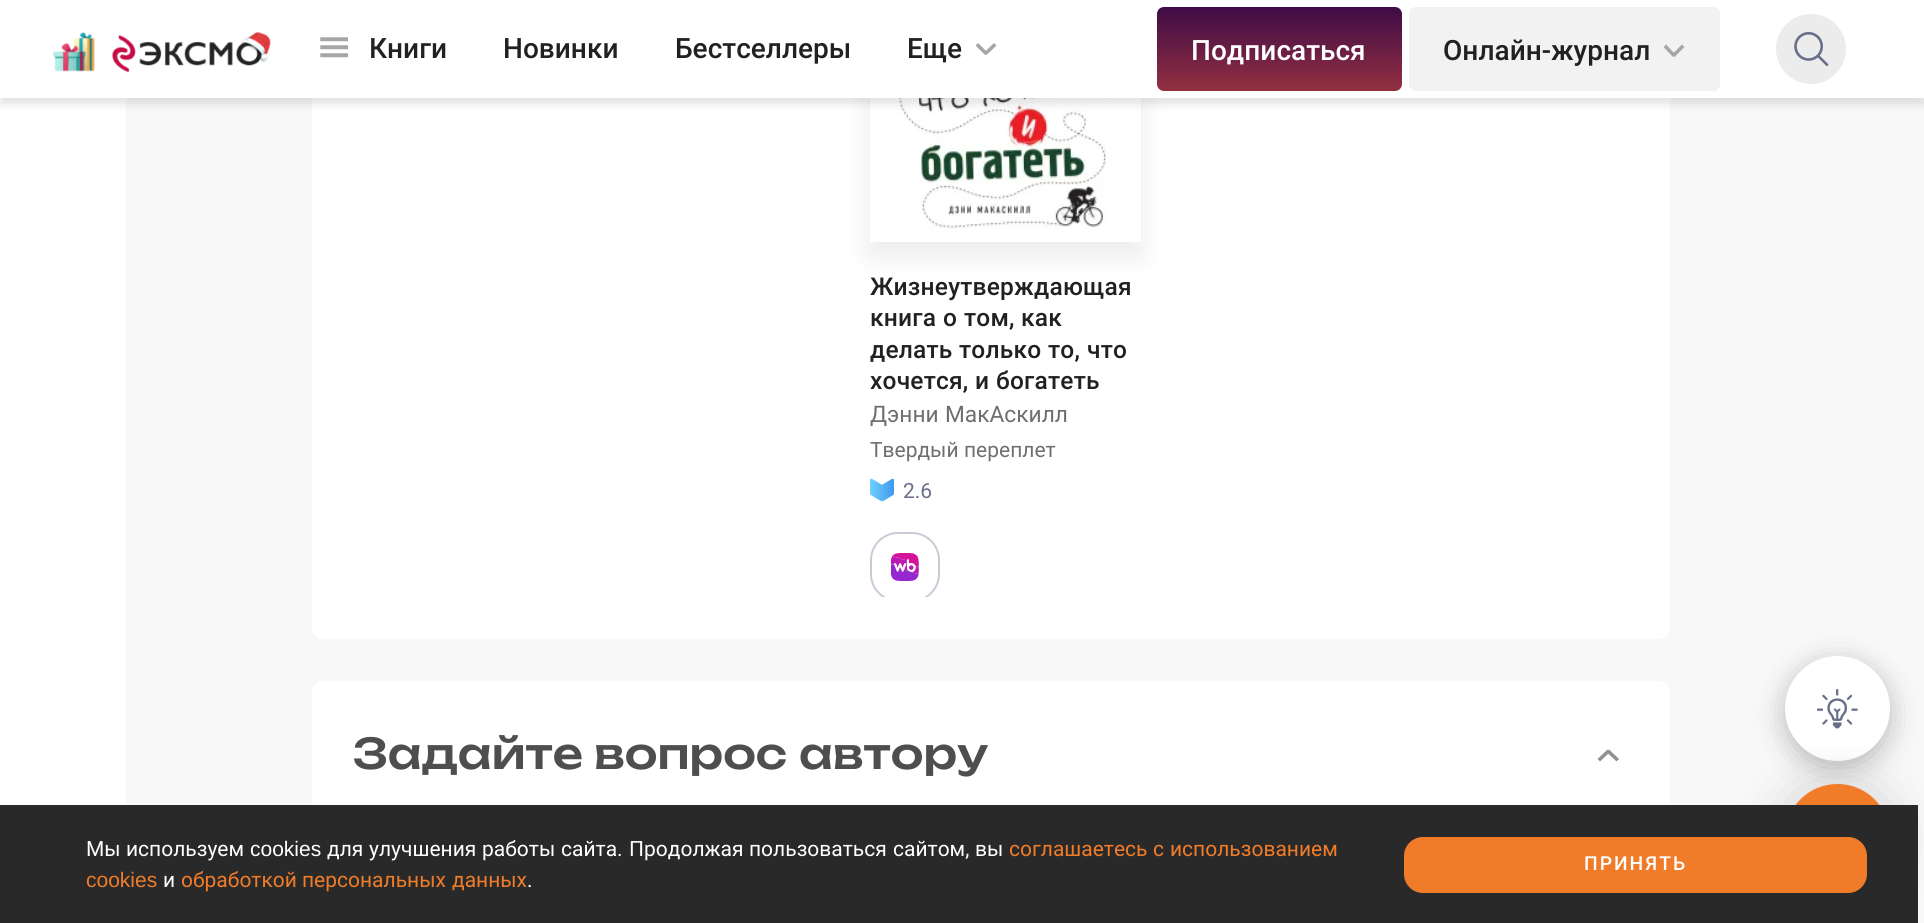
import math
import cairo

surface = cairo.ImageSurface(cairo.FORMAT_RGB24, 1924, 923)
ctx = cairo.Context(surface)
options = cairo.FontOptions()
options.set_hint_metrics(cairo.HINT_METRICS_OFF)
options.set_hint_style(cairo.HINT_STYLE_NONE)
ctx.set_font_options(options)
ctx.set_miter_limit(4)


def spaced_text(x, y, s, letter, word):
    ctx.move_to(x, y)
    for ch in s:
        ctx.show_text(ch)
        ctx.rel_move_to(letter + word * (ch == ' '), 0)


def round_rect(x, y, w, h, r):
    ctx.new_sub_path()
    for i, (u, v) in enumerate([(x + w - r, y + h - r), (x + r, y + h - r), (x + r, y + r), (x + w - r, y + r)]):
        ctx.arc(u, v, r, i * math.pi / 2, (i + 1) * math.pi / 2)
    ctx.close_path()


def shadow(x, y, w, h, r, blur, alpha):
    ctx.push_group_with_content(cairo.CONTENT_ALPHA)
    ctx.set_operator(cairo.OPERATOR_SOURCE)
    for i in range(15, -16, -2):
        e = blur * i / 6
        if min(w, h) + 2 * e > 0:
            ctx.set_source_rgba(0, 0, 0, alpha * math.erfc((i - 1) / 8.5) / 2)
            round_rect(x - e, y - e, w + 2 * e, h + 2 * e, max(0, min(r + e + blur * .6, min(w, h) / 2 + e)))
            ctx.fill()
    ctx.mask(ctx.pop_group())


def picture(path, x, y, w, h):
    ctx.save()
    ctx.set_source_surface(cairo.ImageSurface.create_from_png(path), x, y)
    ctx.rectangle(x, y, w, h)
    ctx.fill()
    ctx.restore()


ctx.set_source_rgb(0.969, 0.969, 0.969)
ctx.paint()
ctx.set_source_rgb(1, 1, 1)
ctx.rectangle(0, 98, 126, 707)
ctx.fill()
round_rect(312, -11, 1358, 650, 11)
ctx.fill()
ctx.save()
ctx.set_fill_rule(cairo.FILL_RULE_EVEN_ODD)
ctx.new_path()
ctx.move_to(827, 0)
ctx.line_to(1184, 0)
ctx.line_to(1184, 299)
ctx.line_to(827, 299)
ctx.close_path()
ctx.move_to(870, -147)
ctx.line_to(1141, -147)
ctx.line_to(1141, 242)
ctx.line_to(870, 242)
ctx.close_path()
ctx.clip()
ctx.set_source_rgb(0, 0, 0)
shadow(870, -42, 271, 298, 0, 14, 0.08)
ctx.restore()
picture("img4.png", 891, 98, 229, 144)
ctx.set_source_rgb(0, 0, 0)
shadow(0, 7, 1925, 98, 0, 3.5, 0.1)
ctx.set_source_rgb(1, 1, 1)
ctx.rectangle(0, 0, 1924, 98)
ctx.fill()
picture("img1.png", 53, 32, 218, 41)
picture("img2.png", 320, 37, 28, 21)
ctx.select_font_face("Roboto Medium")
ctx.set_font_size(28)
ctx.set_source_rgb(0.129, 0.129, 0.129)
ctx.move_to(369, 58)
ctx.show_text("Книги")
ctx.move_to(503, 58)
ctx.show_text("Новинки")
ctx.move_to(675, 58)
ctx.show_text("Бестселлеры")
ctx.move_to(907, 58)
ctx.show_text("Еще")
ctx.set_source_rgb(0.651, 0.651, 0.651)
ctx.new_path()
ctx.move_to(978, 43)
ctx.line_to(987.5, 52.5)
ctx.line_to(985, 55)
ctx.line_to(975.5, 45.5)
ctx.close_path()
ctx.fill()
ctx.new_path()
ctx.move_to(984, 52.5)
ctx.line_to(994, 43)
ctx.line_to(996.5, 45.5)
ctx.line_to(986.5, 55)
ctx.close_path()
ctx.fill()
gradient = cairo.LinearGradient(1279, 7, 1279, 91)
gradient.add_color_stop_rgba(0, 0.243, 0.047, 0.278, 1)
gradient.add_color_stop_rgba(1, 0.58, 0.188, 0.251, 1)
ctx.set_source(gradient)
round_rect(1157, 7, 245, 84, 7)
ctx.fill()
ctx.set_source_rgb(1, 1, 1)
ctx.move_to(1191, 60)
ctx.show_text("Подписаться")
ctx.set_source_rgb(0.949, 0.949, 0.949)
round_rect(1409, 7, 311, 84, 7)
ctx.fill()
ctx.set_source_rgb(0.129, 0.129, 0.129)
ctx.move_to(1443, 60)
ctx.show_text("Онлайн-журнал")
ctx.set_source_rgb(0.651, 0.651, 0.651)
ctx.new_path()
ctx.move_to(1666, 44.5)
ctx.line_to(1675.5, 54.5)
ctx.line_to(1673, 57)
ctx.line_to(1663.5, 47)
ctx.close_path()
ctx.fill()
ctx.new_path()
ctx.move_to(1672, 54.5)
ctx.line_to(1682, 44.5)
ctx.line_to(1684.5, 47)
ctx.line_to(1674.5, 57)
ctx.close_path()
ctx.fill()
ctx.set_source_rgb(0.922, 0.922, 0.922)
ctx.arc(1811, 49, 35, 0, 2 * math.pi)
ctx.fill()
picture("img3.png", 1794, 31, 35, 35)
ctx.set_font_size(24.5)
ctx.set_source_rgb(0.129, 0.129, 0.129)
spaced_text(870, 295, "Жизнеутверждающая", 0.2, 0)
spaced_text(870, 326, "книга", 0.2, 0)
spaced_text(943, 326, "о", 0.2, 0)
spaced_text(964, 326, "том,", 0.2, 0)
spaced_text(1021, 326, "как", 0.2, 0)
spaced_text(870, 358, "делать", 0.2, 0)
spaced_text(959, 358, "только", 0.2, 0)
spaced_text(1048, 358, "то,", 0.2, 0)
spaced_text(1087, 358, "что", 0.2, 0)
spaced_text(870, 389, "хочется,", 0.2, 0)
spaced_text(975, 389, "и", 0.2, 0)
spaced_text(996, 389, "богатеть", 0.2, 0)
ctx.select_font_face("Roboto")
ctx.set_font_size(22.75)
ctx.set_source_rgb(0.435, 0.435, 0.435)
ctx.move_to(870, 422)
ctx.show_text("Дэнни")
ctx.move_to(945, 422)
ctx.show_text("МакАскилл")
ctx.set_font_size(21)
ctx.move_to(870, 457)
ctx.show_text("Твердый")
ctx.move_to(964, 457)
ctx.show_text("переплет")
picture("img5.png", 870, 478, 24, 24)
ctx.set_source_rgb(0.412, 0.435, 0.537)
ctx.move_to(903, 498)
ctx.show_text("2.6")
ctx.save()
ctx.rectangle(371, 0, 1239, 597)
ctx.clip()
round_rect(871, 533, 68, 68, 27)
ctx.set_source_rgb(0.78, 0.8, 0.843)
ctx.stroke()
ctx.restore()
picture("img6.png", 891, 553, 28, 28)
ctx.set_source_rgb(1, 1, 1)
round_rect(312, 681, 1358, 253, 11)
ctx.fill()
ctx.select_font_face("Unbounded Medium")
ctx.set_font_size(42)
ctx.set_source_rgb(0.306, 0.306, 0.306)
ctx.move_to(353, 769)
ctx.show_text("Задайте")
ctx.move_to(594, 769)
ctx.show_text("вопрос")
ctx.move_to(799, 769)
ctx.show_text("автору")
ctx.set_source_rgb(0.569, 0.569, 0.569)
ctx.new_path()
ctx.move_to(1597.5, 759)
ctx.line_to(1607.5, 749.5)
ctx.line_to(1610, 752)
ctx.line_to(1600, 761.5)
ctx.close_path()
ctx.fill()
ctx.new_path()
ctx.move_to(1609, 749.5)
ctx.line_to(1619, 759)
ctx.line_to(1616.5, 761.5)
ctx.line_to(1606.5, 752)
ctx.close_path()
ctx.fill()
ctx.set_source_rgb(0, 0, 0)
shadow(1785, 663, 105, 105, 52.5, 14, 0.25)
ctx.set_source_rgb(1, 1, 1)
ctx.arc(1837.5, 708.5, 52.5, 0, 2 * math.pi)
ctx.fill()
picture("img7.png", 1817, 689, 41, 40)
ctx.set_source_rgb(0, 0, 0)
shadow(1785, 788, 105, 105, 52.5, 28, 0.16)
ctx.set_source_rgb(0.941, 0.486, 0.161)
ctx.arc(1837.5, 836.5, 52.5, 0, 2 * math.pi)
ctx.fill()
picture("img8.png", 1825, 804, 1, 1)
ctx.set_source_rgb(0.161, 0.161, 0.161)
ctx.rectangle(0, 805, 1918, 118)
ctx.fill()
ctx.select_font_face("Roboto")
ctx.set_font_size(21)
ctx.set_source_rgb(1, 1, 1)
ctx.move_to(86, 856)
ctx.show_text("Мы")
ctx.move_to(126, 856)
ctx.show_text("используем")
ctx.select_font_face("Liberation Sans")
ctx.move_to(250, 856)
ctx.show_text("cookies")
ctx.select_font_face("Roboto")
ctx.move_to(327, 856)
ctx.show_text("для")
ctx.move_to(369, 856)
ctx.show_text("улучшения")
ctx.move_to(482, 856)
ctx.show_text("работы")
ctx.move_to(561, 856)
ctx.show_text("сайта.")
ctx.move_to(629, 856)
ctx.show_text("Продолжая")
ctx.move_to(749, 856)
ctx.show_text("пользоваться")
ctx.move_to(893, 856)
ctx.show_text("сайтом,")
ctx.move_to(975, 856)
ctx.show_text("вы")
ctx.set_source_rgb(0.941, 0.486, 0.161)
ctx.move_to(1009, 856)
ctx.show_text("соглашаетесь")
ctx.move_to(1153, 856)
ctx.show_text("с")
ctx.move_to(1170, 856)
ctx.show_text("использованием")
ctx.select_font_face("Liberation Sans")
ctx.move_to(86, 887)
ctx.show_text("cookies")
ctx.select_font_face("Roboto")
ctx.set_source_rgb(1, 1, 1)
ctx.move_to(163, 887)
ctx.show_text("и")
ctx.set_source_rgb(0.941, 0.486, 0.161)
ctx.move_to(181, 887)
ctx.show_text("обработкой")
ctx.move_to(302, 887)
ctx.show_text("персональных")
ctx.move_to(452, 887)
ctx.show_text("данных")
ctx.set_source_rgb(1, 1, 1)
ctx.move_to(527, 887)
ctx.show_text(".")
ctx.set_source_rgb(0.941, 0.486, 0.161)
round_rect(1405, 838, 461, 54, 18)
ctx.fill_preserve()
ctx.stroke()
ctx.select_font_face("Roboto Medium")
ctx.set_font_size(19.25)
ctx.set_source_rgb(1, 1, 1)
spaced_text(1584, 870, "ПРИНЯТЬ", 2, 0)
surface.write_to_png("page.png")
